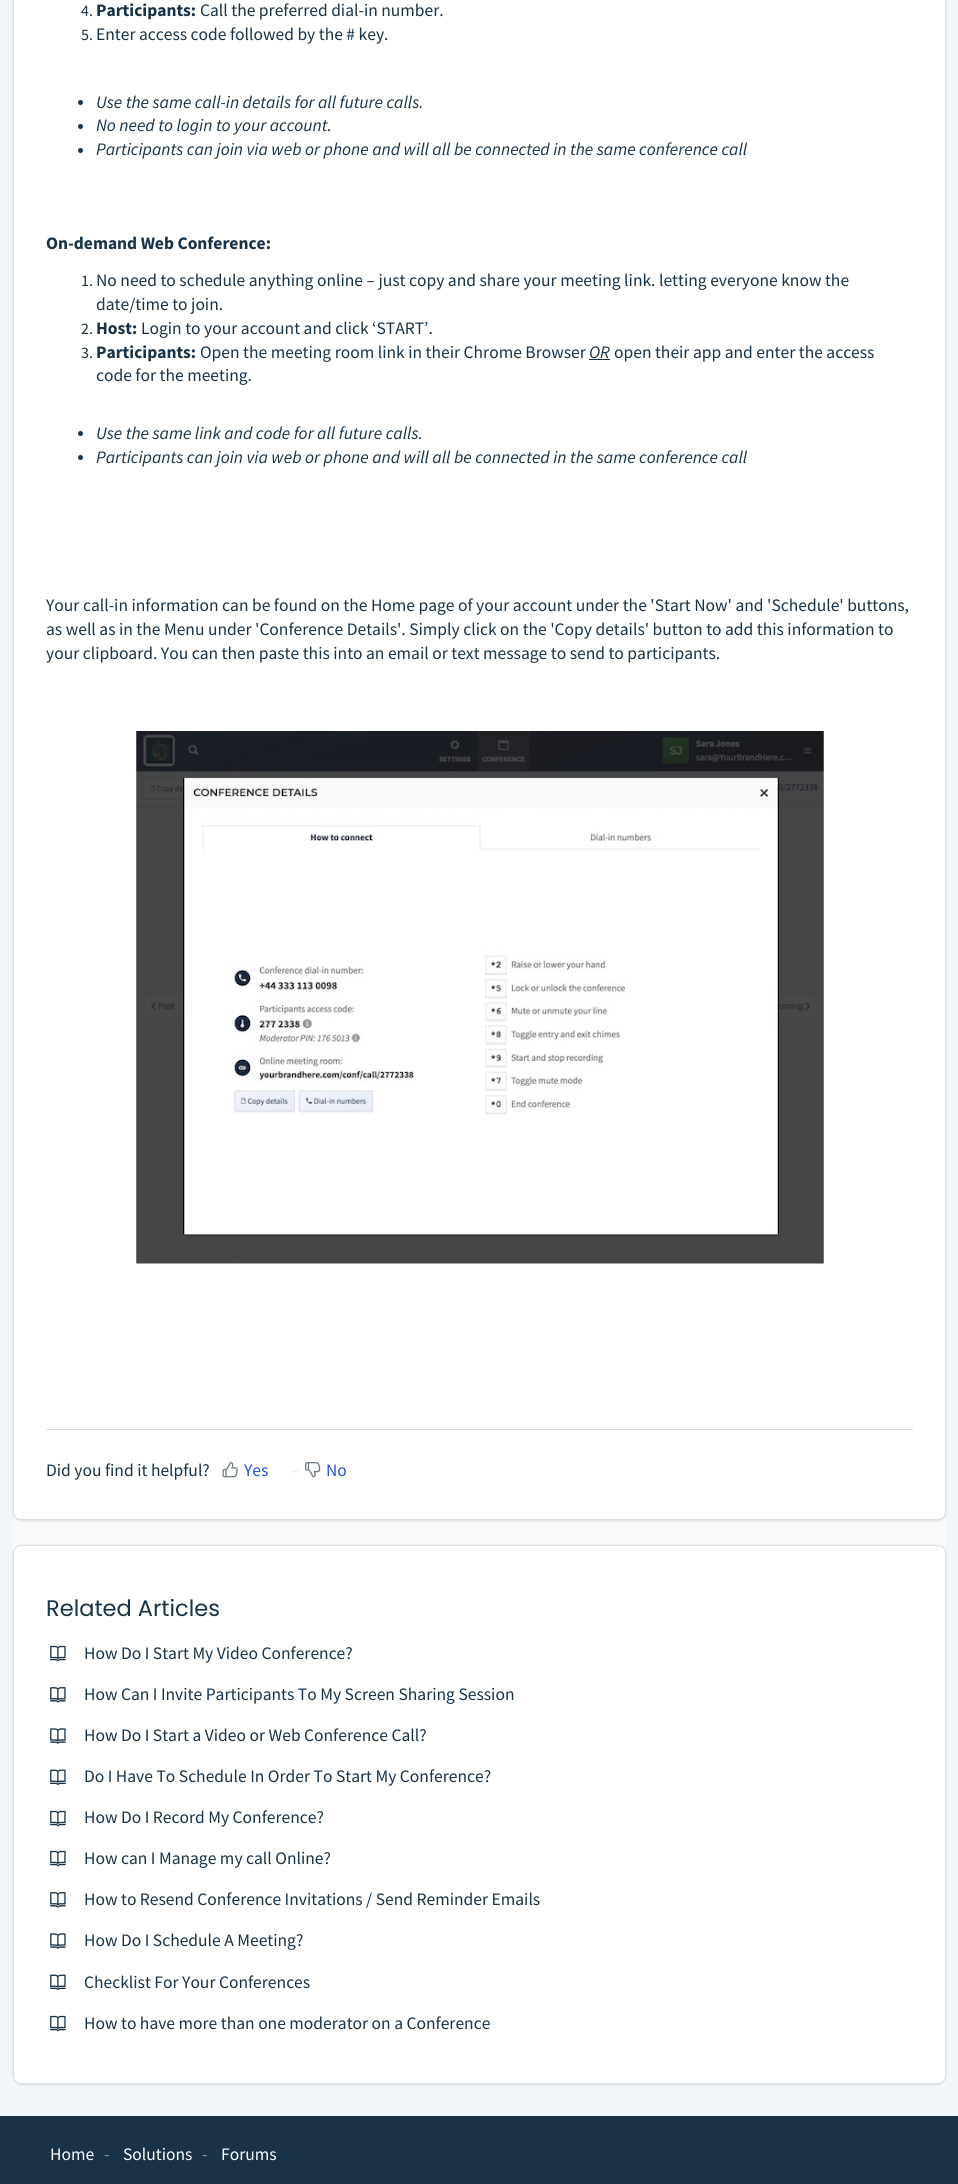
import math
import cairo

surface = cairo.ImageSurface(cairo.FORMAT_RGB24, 958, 2184)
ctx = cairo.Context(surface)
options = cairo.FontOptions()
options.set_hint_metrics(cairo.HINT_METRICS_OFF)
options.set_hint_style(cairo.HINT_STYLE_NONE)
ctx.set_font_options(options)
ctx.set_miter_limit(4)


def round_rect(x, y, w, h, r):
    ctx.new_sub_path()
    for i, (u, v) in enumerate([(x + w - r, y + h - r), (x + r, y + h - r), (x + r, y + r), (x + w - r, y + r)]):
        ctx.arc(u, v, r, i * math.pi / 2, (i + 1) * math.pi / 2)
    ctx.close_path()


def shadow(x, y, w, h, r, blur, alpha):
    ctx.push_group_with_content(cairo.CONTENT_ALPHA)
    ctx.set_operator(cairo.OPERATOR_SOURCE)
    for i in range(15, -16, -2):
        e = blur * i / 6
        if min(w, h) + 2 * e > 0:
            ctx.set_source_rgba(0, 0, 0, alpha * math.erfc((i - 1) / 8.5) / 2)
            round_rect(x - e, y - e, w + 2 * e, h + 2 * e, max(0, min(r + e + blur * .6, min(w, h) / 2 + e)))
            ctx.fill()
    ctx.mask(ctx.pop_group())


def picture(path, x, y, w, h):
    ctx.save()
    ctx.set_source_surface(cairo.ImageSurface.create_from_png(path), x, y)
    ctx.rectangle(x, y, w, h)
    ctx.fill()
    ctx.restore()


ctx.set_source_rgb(0.953, 0.961, 0.969)
ctx.paint()
ctx.set_source_rgb(0.973, 0.976, 0.98)
ctx.rectangle(13, 1512, 933, 572)
ctx.fill()
ctx.set_source_rgb(0.247, 0.247, 0.267)
shadow(13, -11, 933, 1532, 8, 1, 0.15)
ctx.set_source_rgb(1, 1, 1)
round_rect(13.5, -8.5, 932, 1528, 7.5)
ctx.fill_preserve()
ctx.set_source_rgb(0.855, 0.875, 0.89)
ctx.set_line_width(1)
ctx.stroke()
ctx.select_font_face("Source Sans Pro")
ctx.set_font_size(16)
ctx.set_source_rgb(0.094, 0.196, 0.278)
ctx.move_to(81, 16)
ctx.show_text("4.")
ctx.select_font_face("Source Sans Pro", cairo.FONT_SLANT_NORMAL, cairo.FONT_WEIGHT_BOLD)
ctx.set_font_size(17.5)
ctx.move_to(96, 16)
ctx.show_text("Participants:")
ctx.select_font_face("Source Sans Pro")
ctx.move_to(200, 16)
ctx.show_text("Call the preferred dial-in number.")
ctx.set_font_size(16)
ctx.move_to(81, 40)
ctx.show_text("5.")
ctx.set_font_size(17.5)
ctx.move_to(96, 40)
ctx.show_text("Enter access code followed by the # key.")
ctx.new_path()
ctx.arc(80.5, 102.5, 2.5, 0, 2 * math.pi)
ctx.fill()
ctx.select_font_face("Source Sans Pro", cairo.FONT_SLANT_ITALIC)
ctx.move_to(96, 108)
ctx.show_text("Use the same call-in details for all future calls.")
ctx.new_path()
ctx.arc(80.5, 126.5, 2.5, 0, 2 * math.pi)
ctx.fill()
ctx.move_to(96, 131)
ctx.show_text("No need to login to your account.")
ctx.new_path()
ctx.arc(80.5, 150.5, 2.5, 0, 2 * math.pi)
ctx.fill()
ctx.move_to(96, 155)
ctx.show_text("Participants can join via web or phone and will all be connected in the same conference call")
ctx.select_font_face("Source Sans Pro", cairo.FONT_SLANT_NORMAL, cairo.FONT_WEIGHT_BOLD)
ctx.move_to(46, 249)
ctx.show_text("On-demand Web Conference:")
ctx.select_font_face("Source Sans Pro")
ctx.set_font_size(16)
ctx.move_to(81, 286)
ctx.show_text("1.")
ctx.set_font_size(17.5)
ctx.move_to(96, 286)
ctx.show_text("No need to schedule anything online – just copy and share your meeting link. letting everyone know the")
ctx.move_to(96, 310)
ctx.show_text("date/time to join.")
ctx.set_font_size(16)
ctx.move_to(81, 334)
ctx.show_text("2.")
ctx.select_font_face("Source Sans Pro", cairo.FONT_SLANT_NORMAL, cairo.FONT_WEIGHT_BOLD)
ctx.set_font_size(17.5)
ctx.move_to(96, 334)
ctx.show_text("Host:")
ctx.select_font_face("Source Sans Pro")
ctx.move_to(141, 334)
ctx.show_text("Login to your account and click ‘START’.")
ctx.set_font_size(16)
ctx.move_to(81, 358)
ctx.show_text("3.")
ctx.select_font_face("Source Sans Pro", cairo.FONT_SLANT_NORMAL, cairo.FONT_WEIGHT_BOLD)
ctx.set_font_size(17.5)
ctx.move_to(96, 358)
ctx.show_text("Participants:")
ctx.select_font_face("Source Sans Pro")
ctx.move_to(200, 358)
ctx.show_text("Open the meeting room link in their Chrome Browser")
ctx.select_font_face("Source Sans Pro", cairo.FONT_SLANT_ITALIC)
ctx.move_to(589, 358)
ctx.show_text("OR")
ctx.rectangle(589, 359, 21, 1)
ctx.fill()
ctx.select_font_face("Source Sans Pro")
ctx.move_to(614, 358)
ctx.show_text("open their app and enter the access")
ctx.move_to(96, 381)
ctx.show_text("code for the meeting.")
ctx.new_path()
ctx.arc(80.5, 433.5, 2.5, 0, 2 * math.pi)
ctx.fill()
ctx.select_font_face("Source Sans Pro", cairo.FONT_SLANT_ITALIC)
ctx.move_to(96, 439)
ctx.show_text("Use the same link and code for all future calls.")
ctx.new_path()
ctx.arc(80.5, 457.5, 2.5, 0, 2 * math.pi)
ctx.fill()
ctx.move_to(96, 463)
ctx.show_text("Participants can join via web or phone and will all be connected in the same conference call")
ctx.select_font_face("Source Sans Pro")
ctx.move_to(46, 611)
ctx.show_text("Your call-in information can be found on the Home page of your account under the 'Start Now' and 'Schedule' buttons,")
ctx.move_to(46, 635)
ctx.show_text("as well as in the Menu under 'Conference Details'. Simply click on the 'Copy details' button to add this information to")
ctx.move_to(46, 659)
ctx.show_text("your clipboard. You can then paste this into an email or text message to send to participants.")
picture("img1.png", 136, 731, 688, 533)
ctx.set_source_rgb(0.863, 0.863, 0.863)
ctx.rectangle(46, 1429, 867, 1)
ctx.fill()
ctx.set_source_rgb(0.094, 0.196, 0.278)
ctx.move_to(46, 1476)
ctx.show_text("Did you find it helpful?")
picture("img2.png", 222, 1462, 16, 16)
ctx.set_source_rgb(0.153, 0.325, 0.843)
ctx.move_to(244, 1476)
ctx.show_text("Yes")
ctx.set_source_rgb(0.898, 0.898, 0.898)
ctx.move_to(293, 1476)
ctx.show_text("-")
picture("img3.png", 305, 1462, 16, 16)
ctx.set_source_rgb(0.153, 0.325, 0.843)
ctx.move_to(326, 1476)
ctx.show_text("No")
ctx.set_source_rgb(0.247, 0.247, 0.267)
shadow(13, 1546, 933, 539, 8, 1, 0.15)
ctx.set_source_rgb(1, 1, 1)
round_rect(13.5, 1545.5, 932, 538, 7.5)
ctx.fill_preserve()
ctx.set_source_rgb(0.855, 0.875, 0.89)
ctx.stroke()
ctx.select_font_face("Poppins")
ctx.set_font_size(22.5)
ctx.set_source_rgb(0.094, 0.196, 0.278)
ctx.move_to(46, 1616)
ctx.show_text("Related Articles")
picture("img4.png", 50, 1645, 16, 17)
ctx.select_font_face("Source Sans Pro")
ctx.set_font_size(17.5)
ctx.move_to(84, 1659)
ctx.show_text("How Do I Start My Video Conference?")
picture("img5.png", 50, 1687, 16, 16)
ctx.move_to(84, 1700)
ctx.show_text("How Can I Invite Participants To My Screen Sharing Session")
picture("img6.png", 50, 1728, 16, 16)
ctx.move_to(84, 1741)
ctx.show_text("How Do I Start a Video or Web Conference Call?")
picture("img7.png", 50, 1769, 16, 16)
ctx.move_to(84, 1782)
ctx.show_text("Do I Have To Schedule In Order To Start My Conference?")
picture("img4.png", 50, 1810, 16, 17)
ctx.move_to(84, 1823)
ctx.show_text("How Do I Record My Conference?")
picture("img4.png", 50, 1850, 16, 17)
ctx.move_to(84, 1864)
ctx.show_text("How can I Manage my call Online?")
picture("img5.png", 50, 1892, 16, 16)
ctx.move_to(84, 1905)
ctx.show_text("How to Resend Conference Invitations / Send Reminder Emails")
picture("img6.png", 50, 1933, 16, 16)
ctx.move_to(84, 1946)
ctx.show_text("How Do I Schedule A Meeting?")
picture("img7.png", 50, 1974, 16, 16)
ctx.move_to(84, 1988)
ctx.show_text("Checklist For Your Conferences")
picture("img4.png", 50, 2015, 16, 17)
ctx.move_to(84, 2029)
ctx.show_text("How to have more than one moderator on a Conference")
ctx.rectangle(0, 2116, 958, 68)
ctx.fill()
ctx.set_source_rgb(1, 1, 1)
ctx.move_to(50, 2160)
ctx.show_text("Home")
ctx.set_source_rgb(0.549, 0.6, 0.639)
ctx.move_to(104, 2160)
ctx.show_text("-")
ctx.set_source_rgb(1, 1, 1)
ctx.move_to(123, 2160)
ctx.show_text("Solutions")
ctx.set_source_rgb(0.549, 0.6, 0.639)
ctx.move_to(202, 2160)
ctx.show_text("-")
ctx.set_source_rgb(1, 1, 1)
ctx.move_to(221, 2160)
ctx.show_text("Forums")
surface.write_to_png("page.png")
